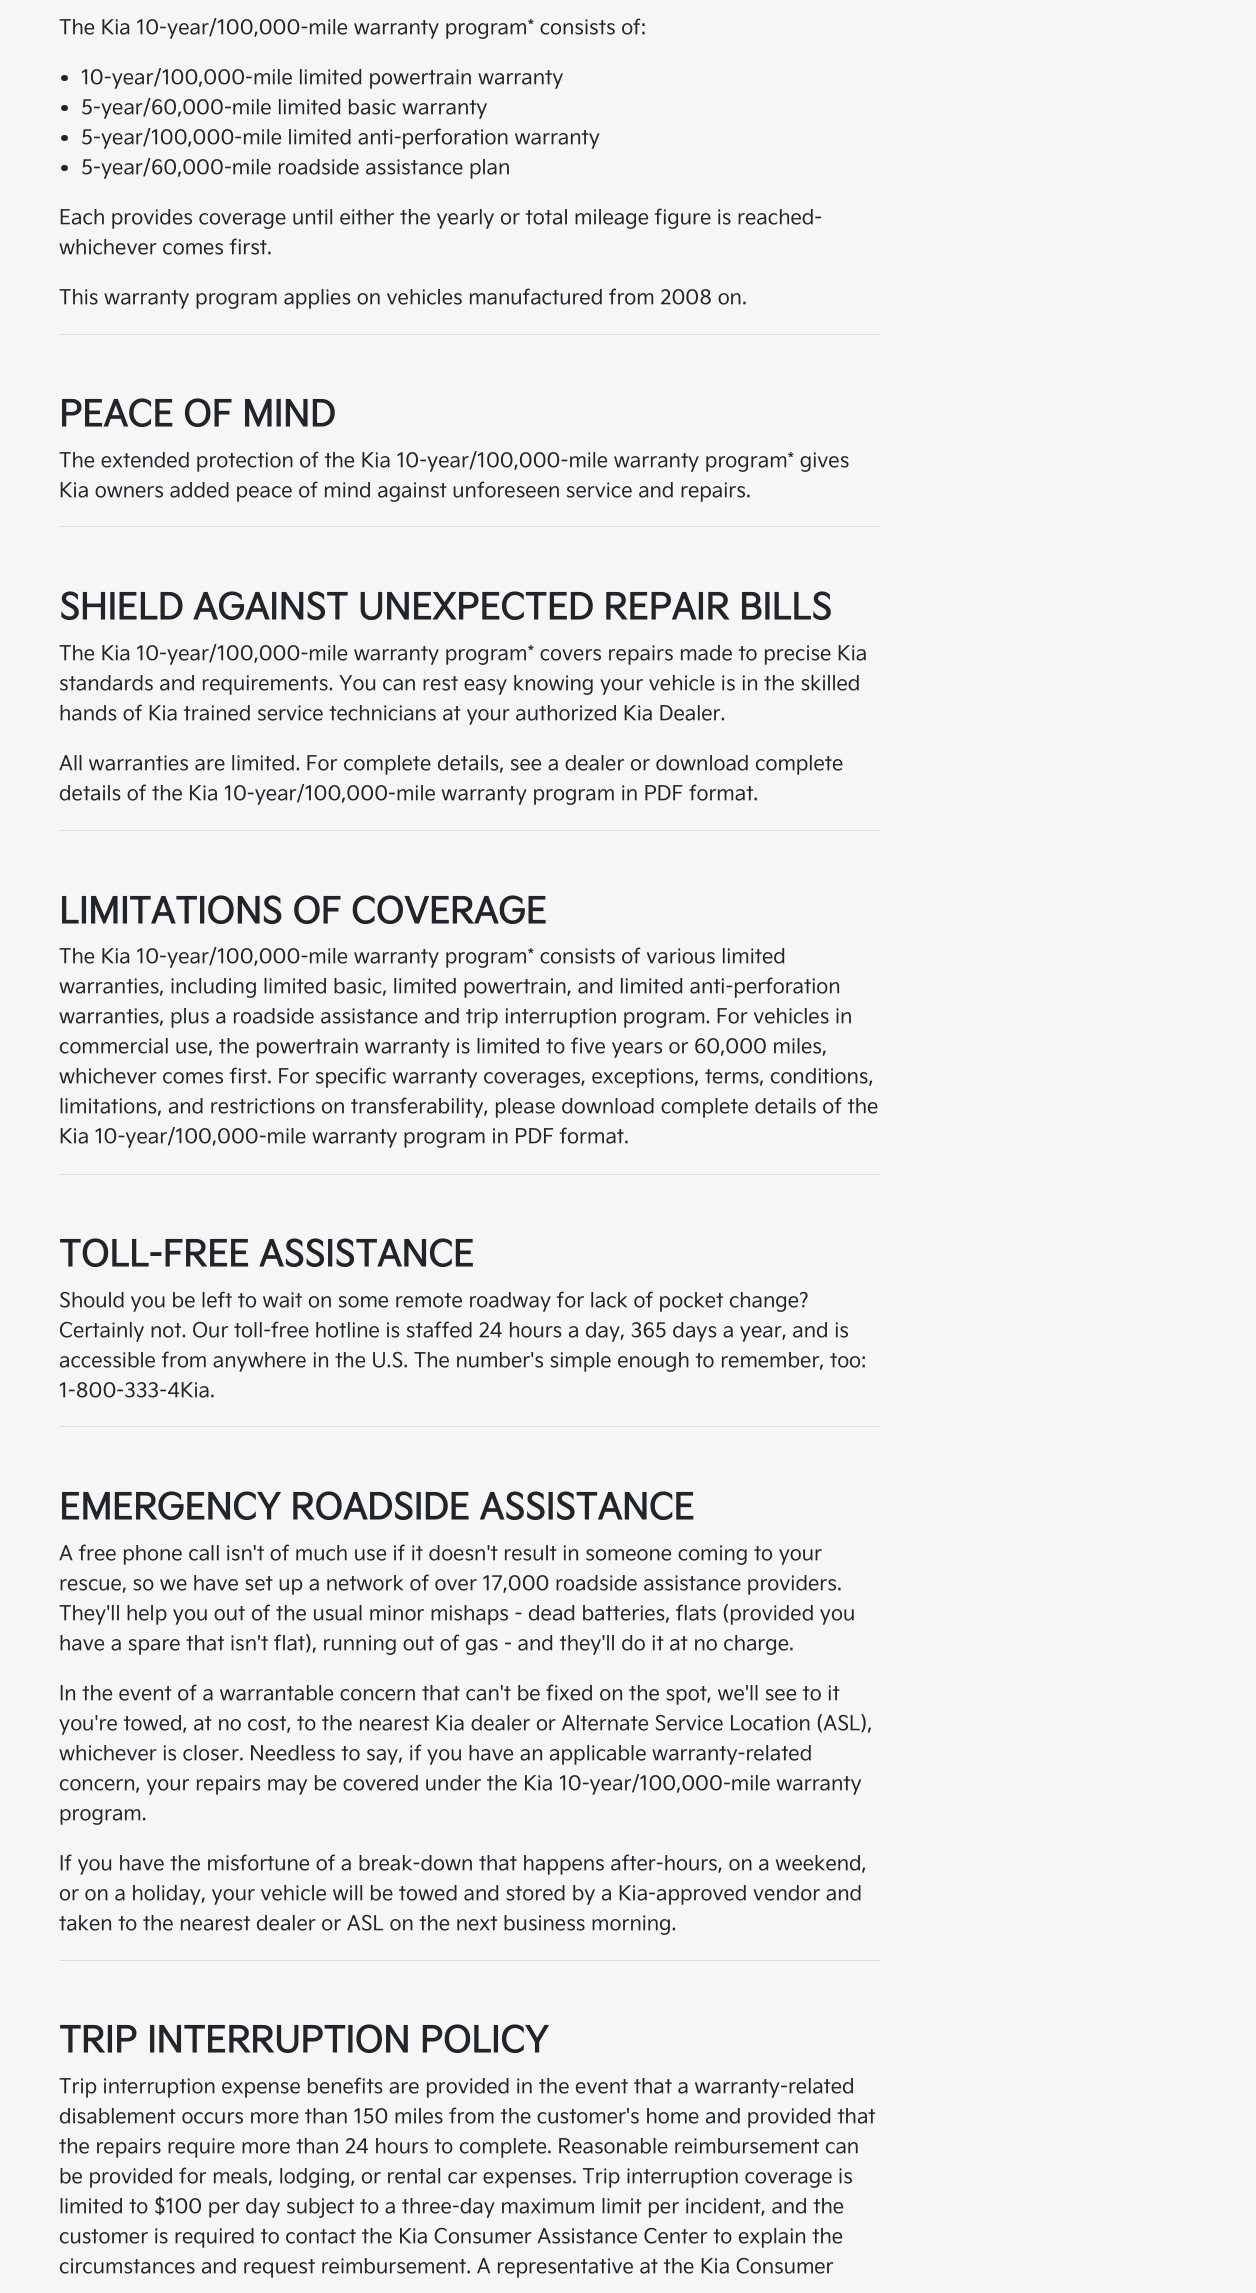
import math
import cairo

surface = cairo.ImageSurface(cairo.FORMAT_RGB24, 1256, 2293)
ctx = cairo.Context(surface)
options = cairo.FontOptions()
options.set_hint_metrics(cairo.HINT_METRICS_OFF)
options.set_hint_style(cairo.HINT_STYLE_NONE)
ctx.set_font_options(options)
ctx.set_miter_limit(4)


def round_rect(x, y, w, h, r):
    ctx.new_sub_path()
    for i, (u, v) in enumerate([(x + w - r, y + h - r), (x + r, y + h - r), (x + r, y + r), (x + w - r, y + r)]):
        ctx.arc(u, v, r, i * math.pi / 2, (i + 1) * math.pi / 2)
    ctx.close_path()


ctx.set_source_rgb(0.961, 0.961, 0.961)
ctx.paint()
ctx.select_font_face("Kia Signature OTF")
ctx.set_font_size(20)
ctx.set_source_rgb(0.129, 0.145, 0.161)
ctx.move_to(59, 34)
ctx.show_text("The Kia 10-year/100,000-mile warranty program* consists of:")
round_rect(61, 75, 7, 6, 3)
ctx.fill()
ctx.move_to(81, 84)
ctx.show_text("10-year/100,000-mile limited powertrain warranty")
round_rect(61, 105, 7, 6, 3)
ctx.fill()
ctx.move_to(81, 114)
ctx.show_text("5-year/60,000-mile limited basic warranty")
round_rect(61, 135, 7, 6, 3)
ctx.fill()
ctx.move_to(81, 144)
ctx.show_text("5-year/100,000-mile limited anti-perforation warranty")
round_rect(61, 165, 7, 6, 3)
ctx.fill()
ctx.move_to(81, 174)
ctx.show_text("5-year/60,000-mile roadside assistance plan")
ctx.move_to(59, 224)
ctx.show_text("Each provides coverage until either the yearly or total mileage figure is reached-")
ctx.move_to(59, 254)
ctx.show_text("whichever comes first.")
ctx.move_to(59, 304)
ctx.show_text("This warranty program applies on vehicles manufactured from 2008 on.")
ctx.set_source_rgb(0.867, 0.867, 0.867)
ctx.rectangle(59, 334, 821, 1)
ctx.fill()
ctx.select_font_face("Kia Signature OTF", cairo.FONT_SLANT_NORMAL, cairo.FONT_WEIGHT_BOLD)
ctx.set_font_size(35)
ctx.set_source_rgb(0.129, 0.145, 0.161)
ctx.move_to(59, 426)
ctx.show_text("PEACE OF MIND")
ctx.select_font_face("Kia Signature OTF")
ctx.set_font_size(20)
ctx.move_to(59, 467)
ctx.show_text("The extended protection of the Kia 10-year/100,000-mile warranty program* gives")
ctx.move_to(59, 497)
ctx.show_text("Kia owners added peace of mind against unforeseen service and repairs.")
ctx.set_source_rgb(0.867, 0.867, 0.867)
ctx.rectangle(59, 526, 821, 1)
ctx.fill()
ctx.select_font_face("Kia Signature OTF", cairo.FONT_SLANT_NORMAL, cairo.FONT_WEIGHT_BOLD)
ctx.set_font_size(35)
ctx.set_source_rgb(0.129, 0.145, 0.161)
ctx.move_to(59, 619)
ctx.show_text("SHIELD AGAINST UNEXPECTED REPAIR BILLS")
ctx.select_font_face("Kia Signature OTF")
ctx.set_font_size(20)
ctx.move_to(59, 660)
ctx.show_text("The Kia 10-year/100,000-mile warranty program* covers repairs made to precise Kia")
ctx.move_to(59, 690)
ctx.show_text("standards and requirements. You can rest easy knowing your vehicle is in the skilled")
ctx.move_to(59, 720)
ctx.show_text("hands of Kia trained service technicians at your authorized Kia Dealer.")
ctx.move_to(59, 770)
ctx.show_text("All warranties are limited. For complete details, see a dealer or download complete")
ctx.move_to(59, 800)
ctx.show_text("details of the Kia 10-year/100,000-mile warranty program in PDF format.")
ctx.set_source_rgb(0.867, 0.867, 0.867)
ctx.rectangle(59, 830, 821, 1)
ctx.fill()
ctx.select_font_face("Kia Signature OTF", cairo.FONT_SLANT_NORMAL, cairo.FONT_WEIGHT_BOLD)
ctx.set_font_size(35)
ctx.set_source_rgb(0.129, 0.145, 0.161)
ctx.move_to(59, 923)
ctx.show_text("LIMITATIONS OF COVERAGE")
ctx.select_font_face("Kia Signature OTF")
ctx.set_font_size(20)
ctx.move_to(59, 963)
ctx.show_text("The Kia 10-year/100,000-mile warranty program* consists of various limited")
ctx.move_to(59, 993)
ctx.show_text("warranties, including limited basic, limited powertrain, and limited anti-perforation")
ctx.move_to(59, 1023)
ctx.show_text("warranties, plus a roadside assistance and trip interruption program. For vehicles in")
ctx.move_to(59, 1053)
ctx.show_text("commercial use, the powertrain warranty is limited to five years or 60,000 miles,")
ctx.move_to(59, 1083)
ctx.show_text("whichever comes first. For specific warranty coverages, exceptions, terms, conditions,")
ctx.move_to(59, 1113)
ctx.show_text("limitations, and restrictions on transferability, please download complete details of the")
ctx.move_to(59, 1143)
ctx.show_text("Kia 10-year/100,000-mile warranty program in PDF format.")
ctx.set_source_rgb(0.867, 0.867, 0.867)
ctx.rectangle(59, 1174, 821, 1)
ctx.fill()
ctx.select_font_face("Kia Signature OTF", cairo.FONT_SLANT_NORMAL, cairo.FONT_WEIGHT_BOLD)
ctx.set_font_size(35)
ctx.set_source_rgb(0.129, 0.145, 0.161)
ctx.move_to(59, 1266)
ctx.show_text("TOLL-FREE ASSISTANCE")
ctx.select_font_face("Kia Signature OTF")
ctx.set_font_size(20)
ctx.move_to(59, 1307)
ctx.show_text("Should you be left to wait on some remote roadway for lack of pocket change?")
ctx.move_to(59, 1337)
ctx.show_text("Certainly not. Our toll-free hotline is staffed 24 hours a day, 365 days a year, and is")
ctx.move_to(59, 1367)
ctx.show_text("accessible from anywhere in the U.S. The number's simple enough to remember, too:")
ctx.move_to(59, 1397)
ctx.show_text("1-800-333-4Kia.")
ctx.set_source_rgb(0.867, 0.867, 0.867)
ctx.rectangle(59, 1426, 821, 1)
ctx.fill()
ctx.select_font_face("Kia Signature OTF", cairo.FONT_SLANT_NORMAL, cairo.FONT_WEIGHT_BOLD)
ctx.set_font_size(35)
ctx.set_source_rgb(0.129, 0.145, 0.161)
ctx.move_to(59, 1519)
ctx.show_text("EMERGENCY ROADSIDE ASSISTANCE")
ctx.select_font_face("Kia Signature OTF")
ctx.set_font_size(20)
ctx.move_to(59, 1560)
ctx.show_text("A free phone call isn't of much use if it doesn't result in someone coming to your")
ctx.move_to(59, 1590)
ctx.show_text("rescue, so we have set up a network of over 17,000 roadside assistance providers.")
ctx.move_to(59, 1620)
ctx.show_text("They'll help you out of the usual minor mishaps - dead batteries, flats (provided you")
ctx.move_to(59, 1650)
ctx.show_text("have a spare that isn't flat), running out of gas - and they'll do it at no charge.")
ctx.move_to(59, 1700)
ctx.show_text("In the event of a warrantable concern that can't be fixed on the spot, we'll see to it")
ctx.move_to(59, 1730)
ctx.show_text("you're towed, at no cost, to the nearest Kia dealer or Alternate Service Location (ASL),")
ctx.move_to(59, 1760)
ctx.show_text("whichever is closer. Needless to say, if you have an applicable warranty-related")
ctx.move_to(59, 1790)
ctx.show_text("concern, your repairs may be covered under the Kia 10-year/100,000-mile warranty")
ctx.move_to(59, 1820)
ctx.show_text("program.")
ctx.move_to(59, 1870)
ctx.show_text("If you have the misfortune of a break-down that happens after-hours, on a weekend,")
ctx.move_to(59, 1900)
ctx.show_text("or on a holiday, your vehicle will be towed and stored by a Kia-approved vendor and")
ctx.move_to(59, 1930)
ctx.show_text("taken to the nearest dealer or ASL on the next business morning.")
ctx.set_source_rgb(0.867, 0.867, 0.867)
ctx.rectangle(59, 1960, 821, 1)
ctx.fill()
ctx.select_font_face("Kia Signature OTF", cairo.FONT_SLANT_NORMAL, cairo.FONT_WEIGHT_BOLD)
ctx.set_font_size(35)
ctx.set_source_rgb(0.129, 0.145, 0.161)
ctx.move_to(59, 2052)
ctx.show_text("TRIP INTERRUPTION POLICY")
ctx.select_font_face("Kia Signature OTF")
ctx.set_font_size(20)
ctx.move_to(59, 2093)
ctx.show_text("Trip interruption expense benefits are provided in the event that a warranty-related")
ctx.move_to(59, 2123)
ctx.show_text("disablement occurs more than 150 miles from the customer's home and provided that")
ctx.move_to(59, 2153)
ctx.show_text("the repairs require more than 24 hours to complete. Reasonable reimbursement can")
ctx.move_to(59, 2183)
ctx.show_text("be provided for meals, lodging, or rental car expenses. Trip interruption coverage is")
ctx.move_to(59, 2213)
ctx.show_text("limited to $100 per day subject to a three-day maximum limit per incident, and the")
ctx.move_to(59, 2243)
ctx.show_text("customer is required to contact the Kia Consumer Assistance Center to explain the")
ctx.move_to(59, 2273)
ctx.show_text("circumstances and request reimbursement. A representative at the Kia Consumer")
surface.write_to_png("page.png")
